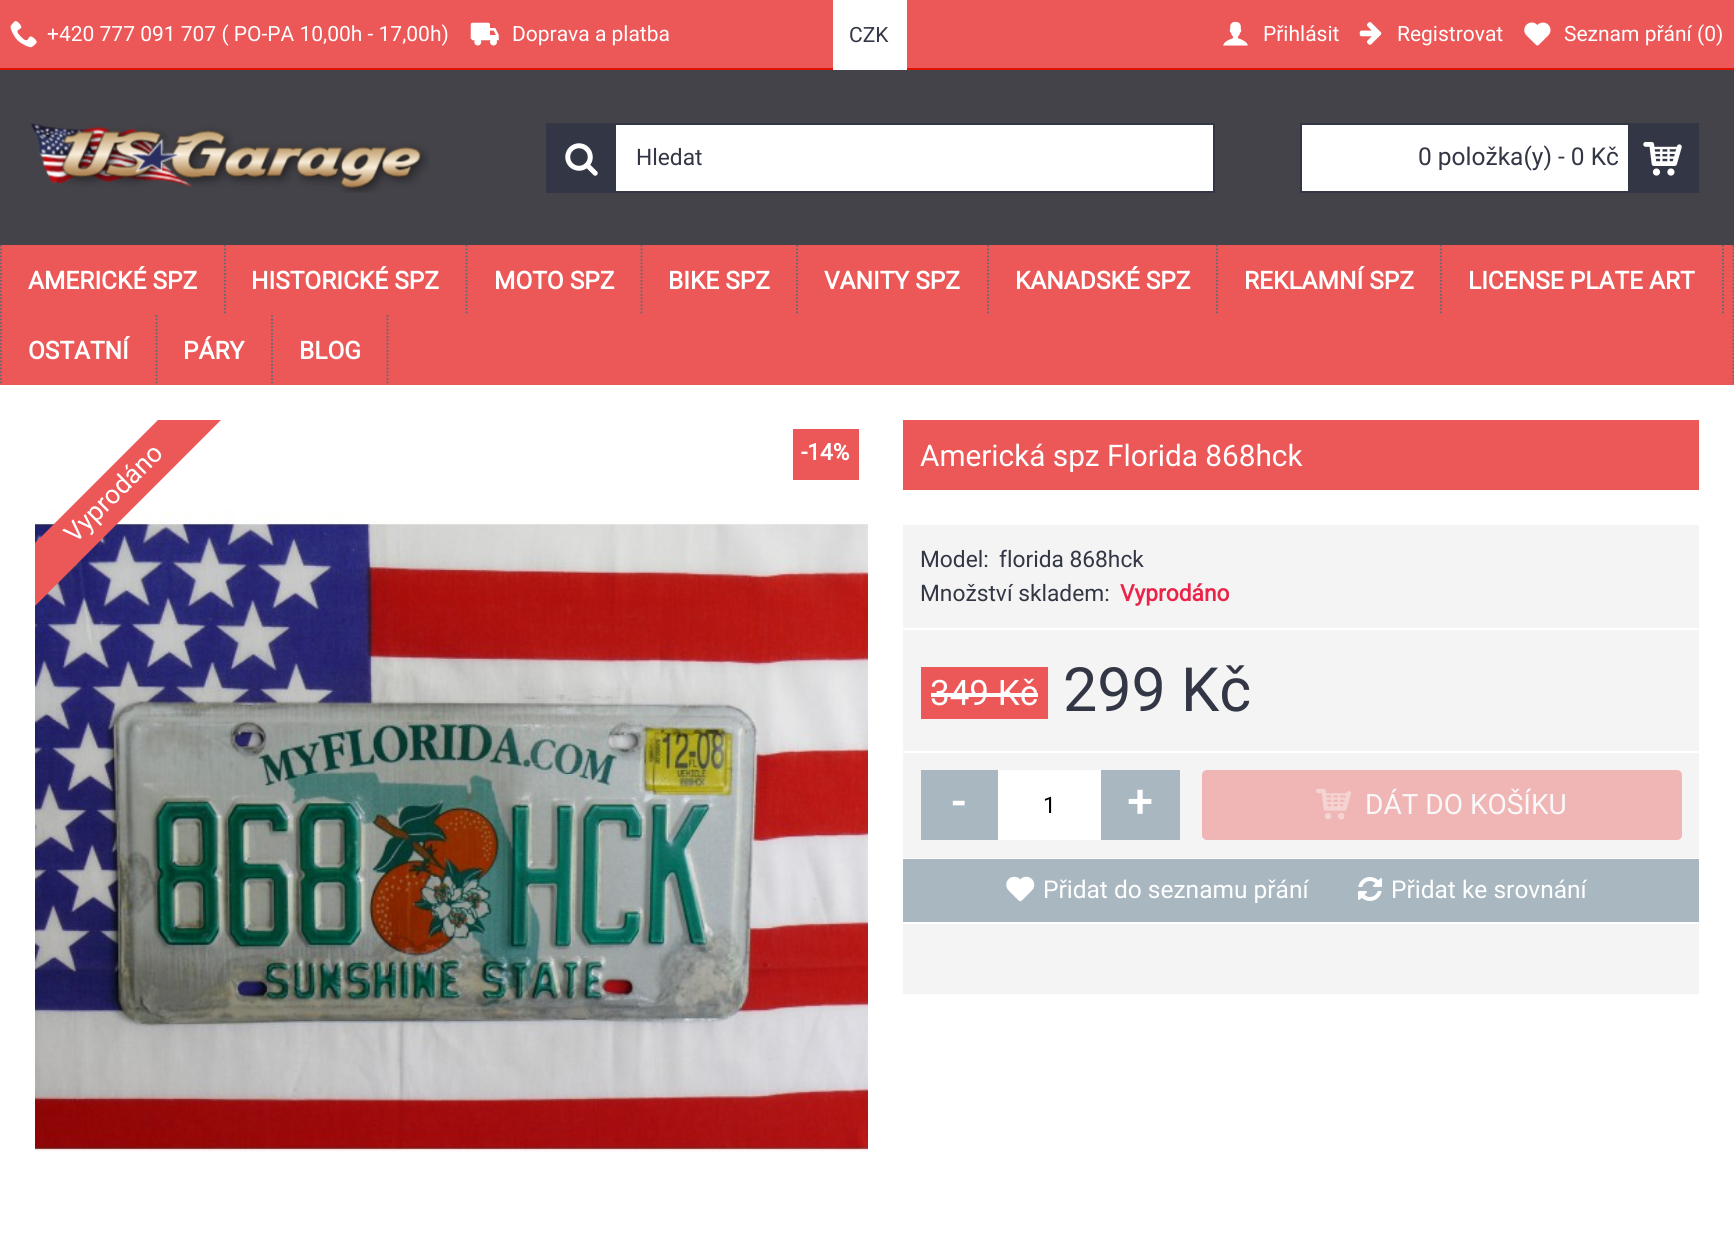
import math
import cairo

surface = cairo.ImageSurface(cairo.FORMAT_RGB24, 1734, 1257)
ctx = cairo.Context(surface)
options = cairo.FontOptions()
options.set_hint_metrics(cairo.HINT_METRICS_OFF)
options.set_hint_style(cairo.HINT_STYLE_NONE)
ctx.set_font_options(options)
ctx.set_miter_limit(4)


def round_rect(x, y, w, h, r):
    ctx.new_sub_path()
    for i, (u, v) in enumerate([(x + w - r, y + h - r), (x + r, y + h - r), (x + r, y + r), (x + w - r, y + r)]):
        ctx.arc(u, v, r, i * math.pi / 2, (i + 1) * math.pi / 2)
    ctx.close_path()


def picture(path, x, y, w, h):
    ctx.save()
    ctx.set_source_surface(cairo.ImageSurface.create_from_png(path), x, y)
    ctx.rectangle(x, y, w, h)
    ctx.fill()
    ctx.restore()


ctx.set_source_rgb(1, 1, 1)
ctx.paint()
ctx.set_source_rgb(0.267, 0.263, 0.286)
ctx.rectangle(0, 70, 1734, 175)
ctx.fill()
ctx.set_source_rgb(0.922, 0.345, 0.345)
ctx.rectangle(0, 0, 1734, 68)
ctx.fill()
ctx.set_source_rgb(0.878, 0.071, 0.012)
ctx.rectangle(0, 68, 1734, 2)
ctx.fill()
picture("img1.png", 10, 21, 27, 27)
ctx.select_font_face("Roboto")
ctx.set_font_size(21)
ctx.set_source_rgb(1, 1, 1)
ctx.move_to(47, 41)
ctx.show_text("+420 777 091 707 ( PO-PA 10,00h - 17,00h)")
picture("img2.png", 470, 22, 29, 24)
ctx.move_to(512, 41)
ctx.show_text("Doprava a platba")
ctx.rectangle(905, 0, 2, 70)
ctx.fill()
ctx.rectangle(833, 0, 72, 70)
ctx.fill()
ctx.set_source_rgb(0.2, 0.216, 0.271)
ctx.move_to(849, 42)
ctx.show_text("CZK")
picture("img3.png", 1223, 21, 25, 25)
ctx.set_source_rgb(1, 1, 1)
ctx.move_to(1263, 41)
ctx.show_text("Přihlásit")
picture("img4.png", 1359, 22, 23, 23)
ctx.move_to(1397, 41)
ctx.show_text("Registrovat")
picture("img5.png", 1524, 22, 27, 24)
ctx.move_to(1564, 41)
ctx.show_text("Seznam přání (0)")
picture("img6.png", 30, 123, 399, 70)
ctx.rectangle(616, 125, 597, 66)
ctx.fill()
ctx.rectangle(547, 124, 667, 68)
ctx.set_source_rgb(0.2, 0.216, 0.271)
ctx.stroke()
ctx.rectangle(548, 125, 68, 66)
ctx.fill()
picture("img7.png", 565, 143, 33, 33)
ctx.set_font_size(22.75)
ctx.move_to(636, 165)
ctx.show_text("Hledat")
ctx.set_source_rgb(1, 1, 1)
ctx.rectangle(1302, 125, 326, 66)
ctx.fill()
ctx.rectangle(1301, 124, 397, 68)
ctx.set_source_rgb(0.2, 0.216, 0.271)
ctx.stroke()
ctx.set_font_size(24.5)
ctx.move_to(1418, 165)
ctx.show_text("0 položka(y) - 0 Kč")
ctx.rectangle(1628, 125, 69, 66)
ctx.fill()
picture("img8.png", 1643, 142, 39, 34)
ctx.set_source_rgb(0.922, 0.345, 0.345)
ctx.rectangle(0, 245, 1734, 140)
ctx.fill()
ctx.new_path()
ctx.move_to(1733.5, 245)
ctx.line_to(1733.5, 385)
ctx.set_source_rgb(0.373, 0.408, 0.455)
ctx.set_line_width(1.8)
ctx.set_dash([1.75, 1.75])
ctx.stroke()
ctx.new_path()
ctx.move_to(1, 245)
ctx.line_to(1, 385)
ctx.stroke()
ctx.new_path()
ctx.move_to(225, 245)
ctx.line_to(225, 315)
ctx.stroke()
ctx.select_font_face("Roboto", cairo.FONT_SLANT_NORMAL, cairo.FONT_WEIGHT_BOLD)
ctx.set_source_rgb(1, 1, 1)
ctx.move_to(28, 289)
ctx.show_text("AMERICKÉ SPZ")
ctx.new_path()
ctx.move_to(466.5, 245)
ctx.line_to(466.5, 315)
ctx.set_source_rgb(0.373, 0.408, 0.455)
ctx.stroke()
ctx.set_source_rgb(1, 1, 1)
ctx.move_to(251, 289)
ctx.show_text("HISTORICKÉ SPZ")
ctx.new_path()
ctx.move_to(641.5, 245)
ctx.line_to(641.5, 315)
ctx.set_source_rgb(0.373, 0.408, 0.455)
ctx.stroke()
ctx.set_source_rgb(1, 1, 1)
ctx.move_to(494, 289)
ctx.show_text("MOTO SPZ")
ctx.new_path()
ctx.move_to(797, 245)
ctx.line_to(797, 315)
ctx.set_source_rgb(0.373, 0.408, 0.455)
ctx.stroke()
ctx.set_source_rgb(1, 1, 1)
ctx.move_to(668, 289)
ctx.show_text("BIKE SPZ")
ctx.new_path()
ctx.move_to(988, 245)
ctx.line_to(988, 315)
ctx.set_source_rgb(0.373, 0.408, 0.455)
ctx.stroke()
ctx.set_source_rgb(1, 1, 1)
ctx.move_to(824, 289)
ctx.show_text("VANITY SPZ")
ctx.new_path()
ctx.move_to(1217, 245)
ctx.line_to(1217, 315)
ctx.set_source_rgb(0.373, 0.408, 0.455)
ctx.stroke()
ctx.set_source_rgb(1, 1, 1)
ctx.move_to(1015, 289)
ctx.show_text("KANADSKÉ SPZ")
ctx.new_path()
ctx.move_to(1441, 245)
ctx.line_to(1441, 315)
ctx.set_source_rgb(0.373, 0.408, 0.455)
ctx.stroke()
ctx.set_source_rgb(1, 1, 1)
ctx.move_to(1244, 289)
ctx.show_text("REKLAMNÍ SPZ")
ctx.new_path()
ctx.move_to(1723, 245)
ctx.line_to(1723, 315)
ctx.set_source_rgb(0.373, 0.408, 0.455)
ctx.stroke()
ctx.set_source_rgb(1, 1, 1)
ctx.move_to(1468, 289)
ctx.show_text("LICENSE PLATE ART")
ctx.new_path()
ctx.move_to(156.5, 315)
ctx.line_to(156.5, 385)
ctx.set_source_rgb(0.373, 0.408, 0.455)
ctx.stroke()
ctx.set_source_rgb(1, 1, 1)
ctx.move_to(28, 359)
ctx.show_text("OSTATNÍ")
ctx.new_path()
ctx.move_to(272, 315)
ctx.line_to(272, 385)
ctx.set_source_rgb(0.373, 0.408, 0.455)
ctx.stroke()
ctx.set_source_rgb(1, 1, 1)
ctx.move_to(183, 359)
ctx.show_text("PÁRY")
ctx.new_path()
ctx.move_to(387.5, 315)
ctx.line_to(387.5, 385)
ctx.set_source_rgb(0.373, 0.408, 0.455)
ctx.stroke()
ctx.set_source_rgb(1, 1, 1)
ctx.move_to(299, 359)
ctx.show_text("BLOG")
picture("img9.png", 35, 509, 833, 643)
ctx.save()
ctx.rectangle(35, 420, 1664, 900)
ctx.clip()
ctx.set_source_rgb(0.922, 0.345, 0.345)
ctx.new_path()
ctx.move_to(-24, 602)
ctx.line_to(223, 355)
ctx.line_to(255, 386)
ctx.line_to(7, 634)
ctx.close_path()
ctx.fill()
ctx.restore()
ctx.select_font_face("Roboto")
ctx.set_font_size(26.25)
ctx.save()
ctx.translate(75, 544)
ctx.rotate(-45 * math.pi / 180)
ctx.move_to(0, 0)
ctx.show_text("Vyprodáno")
ctx.restore()
ctx.set_source_rgb(0.922, 0.345, 0.345)
ctx.rectangle(793, 429, 66, 51)
ctx.fill()
ctx.select_font_face("Roboto", cairo.FONT_SLANT_NORMAL, cairo.FONT_WEIGHT_BOLD)
ctx.set_font_size(22.75)
ctx.set_source_rgb(1, 1, 1)
ctx.move_to(801, 460)
ctx.show_text("-14%")
ctx.set_source_rgb(0.922, 0.345, 0.345)
ctx.rectangle(903, 420, 796, 70)
ctx.fill()
ctx.select_font_face("Roboto")
ctx.set_font_size(29.75)
ctx.set_source_rgb(1, 1, 1)
ctx.move_to(920, 466)
ctx.show_text("Americká spz Florida 868hck")
ctx.set_source_rgb(0.957, 0.957, 0.957)
ctx.rectangle(903, 525, 796, 103)
ctx.fill()
ctx.set_font_size(22.75)
ctx.set_source_rgb(0.2, 0.216, 0.271)
ctx.move_to(920, 567)
ctx.show_text("Model:")
ctx.move_to(999, 567)
ctx.show_text("florida 868hck")
ctx.move_to(920, 601)
ctx.show_text("Množství skladem:")
ctx.select_font_face("Roboto", cairo.FONT_SLANT_NORMAL, cairo.FONT_WEIGHT_BOLD)
ctx.set_source_rgb(0.918, 0.137, 0.286)
ctx.move_to(1120, 601)
ctx.show_text("Vyprodáno")
ctx.set_source_rgb(0.957, 0.957, 0.957)
ctx.rectangle(903, 630, 796, 121)
ctx.fill()
ctx.set_source_rgb(0.922, 0.345, 0.345)
ctx.rectangle(921, 667, 127, 52)
ctx.fill()
ctx.select_font_face("Roboto")
ctx.set_font_size(35)
ctx.set_source_rgb(1, 1, 1)
ctx.move_to(930, 705)
ctx.show_text("349 Kč")
ctx.rectangle(931, 693, 107, 4)
ctx.fill()
ctx.set_font_size(61)
ctx.set_source_rgb(0.2, 0.216, 0.271)
ctx.move_to(1063, 711)
ctx.show_text("299 Kč")
ctx.set_source_rgb(0.957, 0.957, 0.957)
ctx.rectangle(903, 753, 796, 105)
ctx.fill()
ctx.set_source_rgb(0.663, 0.722, 0.753)
ctx.rectangle(921, 770, 77, 70)
ctx.fill()
ctx.select_font_face("Roboto", cairo.FONT_SLANT_NORMAL, cairo.FONT_WEIGHT_BOLD)
ctx.set_font_size(44)
ctx.set_source_rgb(1, 1, 1)
ctx.move_to(952, 817)
ctx.show_text("-")
ctx.rectangle(998, 770, 103, 70)
ctx.fill()
ctx.select_font_face("Roboto")
ctx.set_font_size(22.75)
ctx.set_source_rgb(0, 0, 0)
ctx.move_to(1043, 813)
ctx.show_text("1")
ctx.set_source_rgb(0.663, 0.722, 0.753)
ctx.rectangle(1101, 770, 79, 70)
ctx.fill()
ctx.select_font_face("Roboto", cairo.FONT_SLANT_NORMAL, cairo.FONT_WEIGHT_BOLD)
ctx.set_font_size(44)
ctx.set_source_rgb(1, 1, 1)
ctx.move_to(1127, 817)
ctx.show_text("+")
ctx.set_source_rgb(0.941, 0.714, 0.714)
round_rect(1202, 770, 480, 70, 5)
ctx.fill()
picture("img10.png", 1316, 788, 35, 32)
ctx.select_font_face("Roboto")
ctx.set_font_size(28)
ctx.set_source_rgb(0.973, 0.973, 0.973)
ctx.move_to(1365, 814)
ctx.show_text("DÁT DO KOŠÍKU")
ctx.set_source_rgb(0.663, 0.722, 0.753)
ctx.rectangle(903, 859, 796, 63)
ctx.fill()
picture("img11.png", 1006, 876, 29, 26)
ctx.set_font_size(24.5)
ctx.set_source_rgb(1, 1, 1)
ctx.move_to(1043, 898)
ctx.show_text("Přidat do seznamu přání")
picture("img12.png", 1358, 877, 24, 24)
ctx.move_to(1391, 898)
ctx.show_text("Přidat ke srovnání")
ctx.set_source_rgb(0.957, 0.957, 0.957)
ctx.rectangle(903, 924, 796, 70)
ctx.fill()
surface.write_to_png("page.png")
